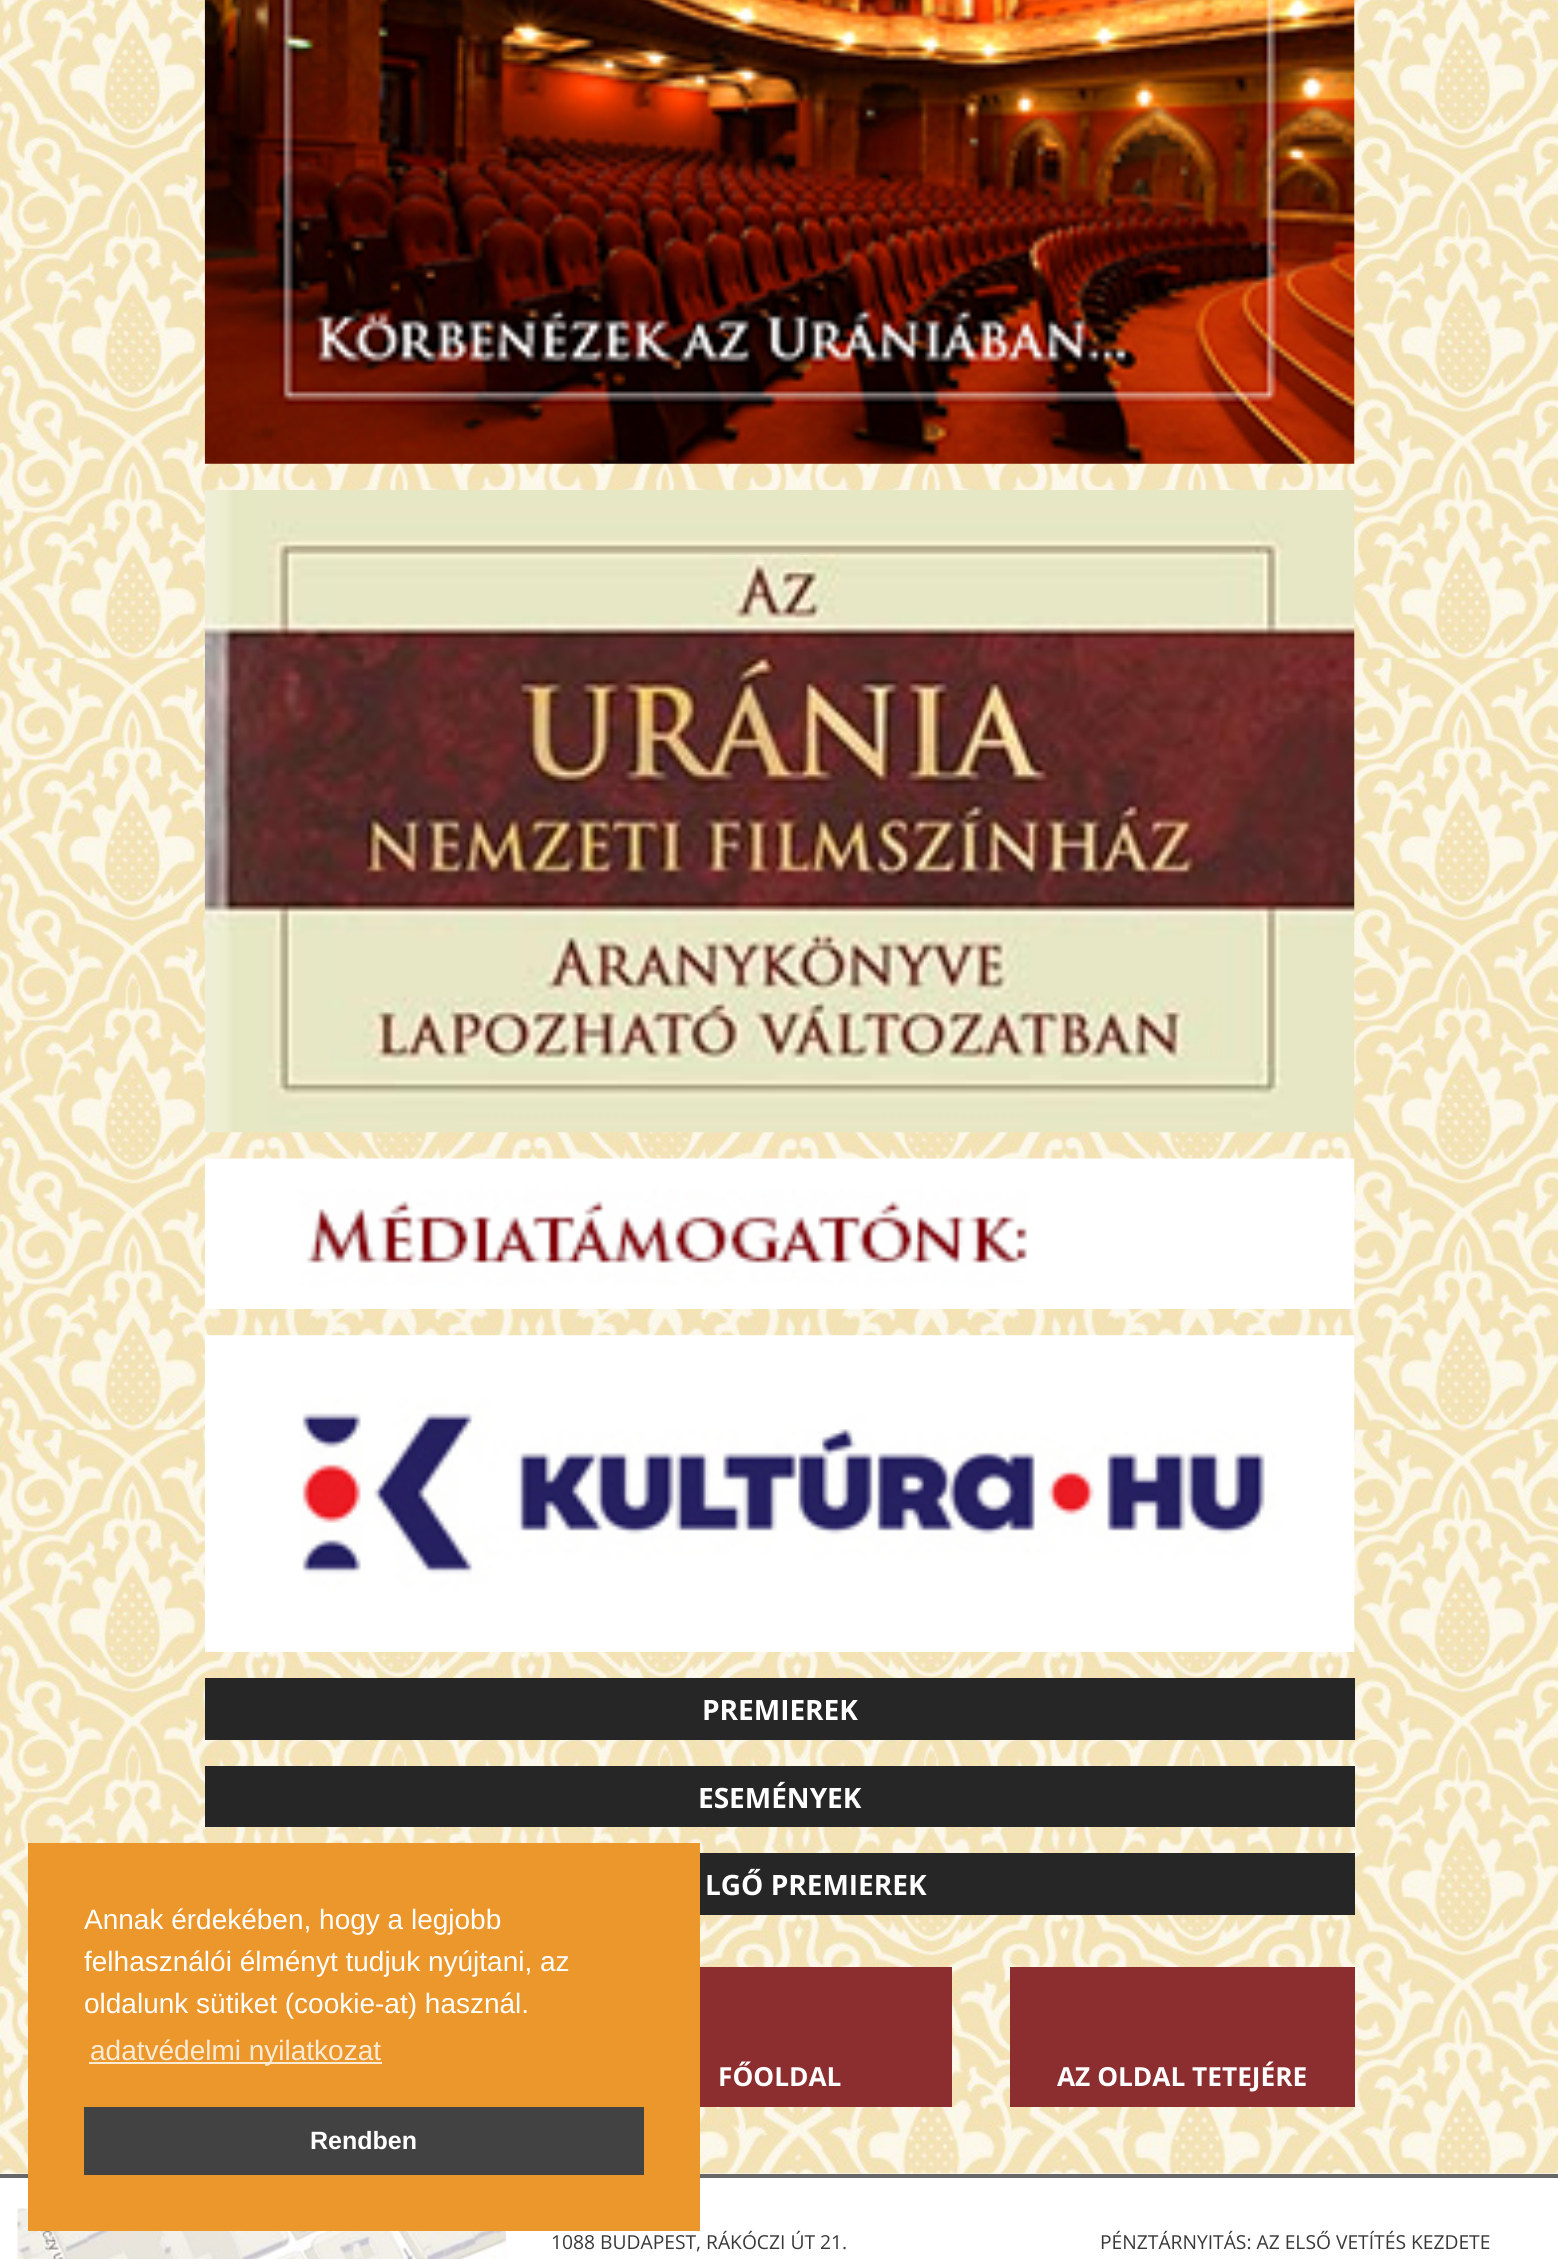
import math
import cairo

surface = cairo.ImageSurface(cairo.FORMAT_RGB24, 1558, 2259)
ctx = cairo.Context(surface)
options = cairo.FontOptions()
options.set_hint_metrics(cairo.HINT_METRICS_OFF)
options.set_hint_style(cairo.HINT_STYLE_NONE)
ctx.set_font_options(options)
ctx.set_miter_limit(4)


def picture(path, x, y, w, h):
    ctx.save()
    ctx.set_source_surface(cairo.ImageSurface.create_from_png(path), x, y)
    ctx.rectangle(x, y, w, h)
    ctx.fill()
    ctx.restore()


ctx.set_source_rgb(1, 1, 1)
ctx.paint()
picture("img1.png", 0, 0, 1558, 2174)
ctx.set_source_rgb(0.404, 0.404, 0.404)
ctx.rectangle(0, 2174, 1558, 4)
ctx.fill()
picture("img6.png", 17, 2208, 489, 51)
ctx.select_font_face("Open Sans")
ctx.set_font_size(19.25)
ctx.set_source_rgb(0.227, 0.224, 0.224)
ctx.move_to(551, 2249)
ctx.show_text("1088 BUDAPEST, RÁKÓCZI ÚT 21.")
ctx.set_source_rgb(0.918, 0.592, 0.169)
ctx.rectangle(28, 1843, 672, 388)
ctx.fill()
ctx.select_font_face("Liberation Sans")
ctx.set_font_size(28)
ctx.set_source_rgb(1, 1, 1)
ctx.move_to(84, 1929)
ctx.show_text("Annak érdekében, hogy a legjobb")
ctx.move_to(84, 1971)
ctx.show_text("felhasználói élményt tudjuk nyújtani, az")
ctx.move_to(84, 2013)
ctx.show_text("oldalunk sütiket (cookie-at) használ.")
ctx.set_source_rgb(0.984, 0.918, 0.835)
ctx.rectangle(89, 2062, 293, 2)
ctx.fill()
ctx.move_to(90, 2060)
ctx.show_text("adatvédelmi nyilatkozat")
ctx.set_source_rgb(0.259, 0.259, 0.259)
ctx.rectangle(84, 2107, 560, 68)
ctx.fill()
ctx.select_font_face("Liberation Sans", cairo.FONT_SLANT_NORMAL, cairo.FONT_WEIGHT_BOLD)
ctx.set_font_size(25)
ctx.set_source_rgb(1, 1, 1)
ctx.move_to(310, 2149)
ctx.show_text("Rendben")
picture("img2.png", 204, 0, 1151, 464)
picture("img3.png", 204, 490, 1151, 643)
picture("img4.png", 204, 1158, 1151, 151)
picture("img5.png", 204, 1335, 1151, 317)
ctx.set_source_rgb(0.149, 0.149, 0.149)
ctx.rectangle(205, 1678, 1150, 62)
ctx.fill()
ctx.select_font_face("Open Sans", cairo.FONT_SLANT_NORMAL, cairo.FONT_WEIGHT_BOLD)
ctx.set_font_size(28)
ctx.set_source_rgb(1, 1, 1)
ctx.move_to(702, 1720)
ctx.show_text("PREMIEREK")
ctx.set_source_rgb(0.149, 0.149, 0.149)
ctx.rectangle(205, 1766, 1150, 61)
ctx.fill()
ctx.set_source_rgb(1, 1, 1)
ctx.move_to(698, 1808)
ctx.show_text("ESEMÉNYEK")
ctx.set_source_rgb(0.149, 0.149, 0.149)
ctx.rectangle(700, 1853, 655, 62)
ctx.fill()
ctx.set_source_rgb(1, 1, 1)
ctx.move_to(705, 1895)
ctx.show_text("LGŐ PREMIEREK")
ctx.set_source_rgb(0.549, 0.176, 0.184)
ctx.rectangle(700, 1967, 252, 140)
ctx.fill()
ctx.set_font_size(26.25)
ctx.set_source_rgb(1, 1, 1)
ctx.move_to(718, 2086)
ctx.show_text("FŐOLDAL")
ctx.set_source_rgb(0.549, 0.176, 0.184)
ctx.rectangle(1010, 1967, 345, 140)
ctx.fill()
ctx.set_source_rgb(1, 1, 1)
ctx.move_to(1057, 2086)
ctx.show_text("AZ OLDAL TETEJÉRE")
ctx.select_font_face("Open Sans")
ctx.set_font_size(19.25)
ctx.set_source_rgb(0.227, 0.224, 0.224)
ctx.move_to(1100, 2249)
ctx.show_text("PÉNZTÁRNYITÁS: AZ ELSŐ VETÍTÉS KEZDETE")
surface.write_to_png("page.png")
